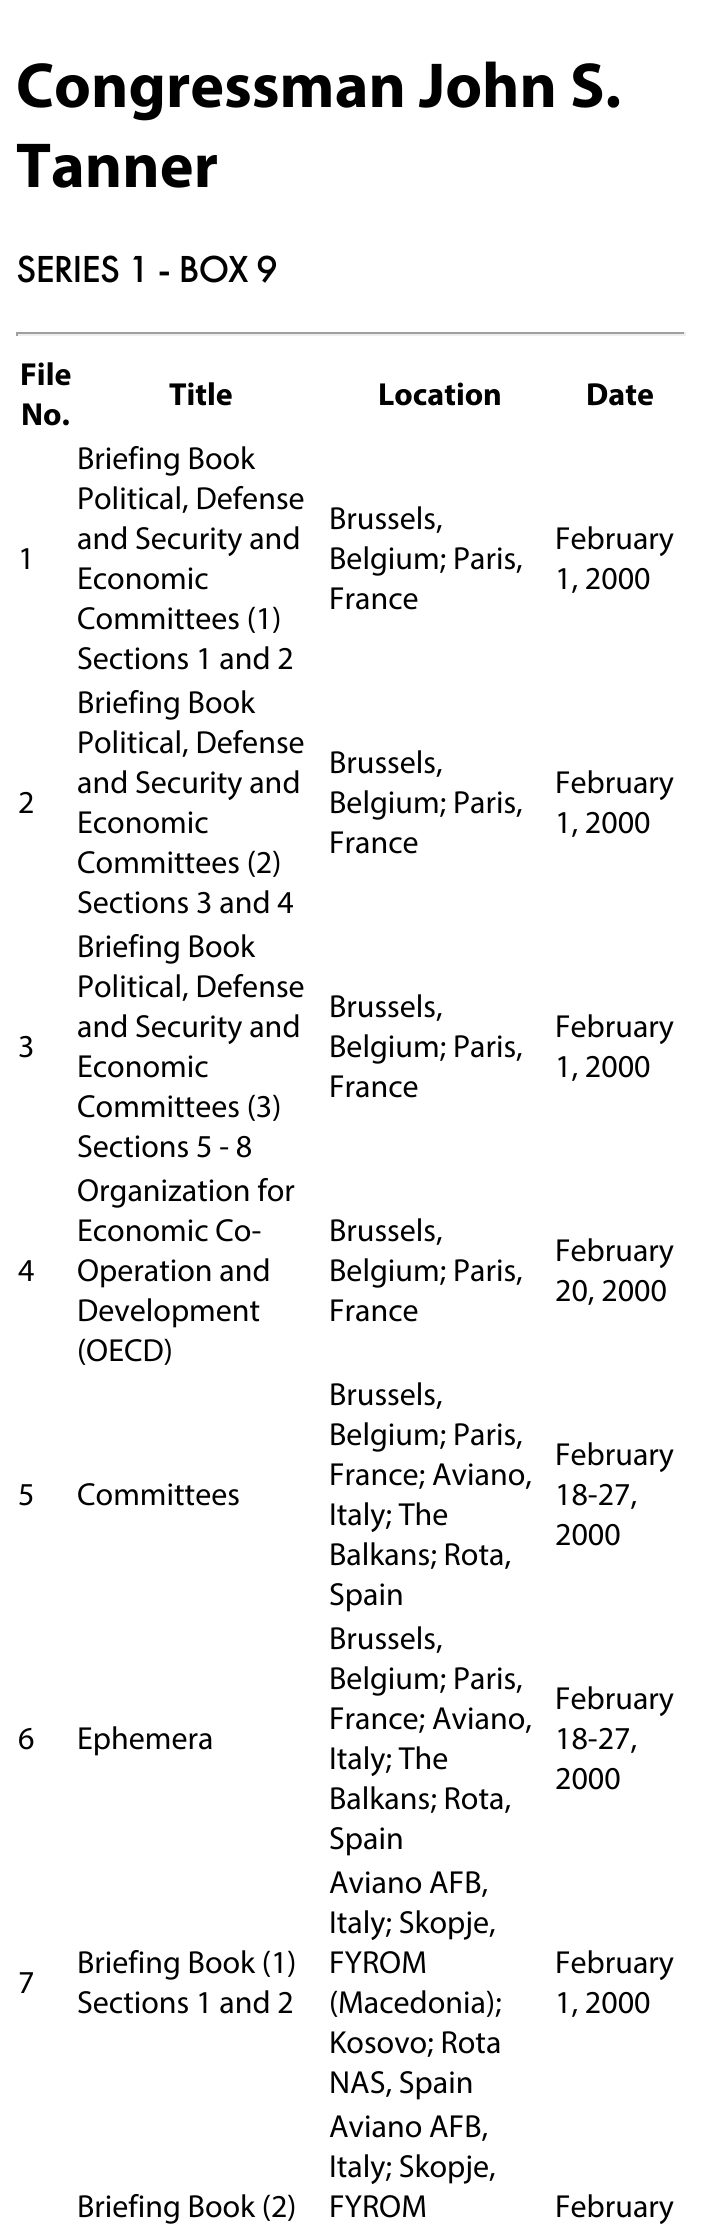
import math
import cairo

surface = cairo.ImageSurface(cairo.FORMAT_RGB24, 702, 2224)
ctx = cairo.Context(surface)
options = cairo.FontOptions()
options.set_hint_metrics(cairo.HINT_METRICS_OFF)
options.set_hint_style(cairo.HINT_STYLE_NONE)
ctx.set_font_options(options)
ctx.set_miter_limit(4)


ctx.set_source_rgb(1, 1, 1)
ctx.paint()
ctx.select_font_face("Myriad", cairo.FONT_SLANT_NORMAL, cairo.FONT_WEIGHT_BOLD)
ctx.set_font_size(64)
ctx.set_source_rgb(0, 0, 0)
ctx.move_to(16, 107)
ctx.show_text("Congressman John S.")
ctx.move_to(16, 187)
ctx.show_text("Tanner")
ctx.select_font_face("Futura PT", cairo.FONT_SLANT_NORMAL, cairo.FONT_WEIGHT_BOLD)
ctx.set_font_size(37.5)
ctx.move_to(16, 282)
ctx.show_text("SERIES 1 - BOX 9")
ctx.set_source_rgb(0.624, 0.624, 0.624)
ctx.rectangle(16, 332, 670, 2)
ctx.fill()
ctx.set_source_rgb(0.933, 0.933, 0.933)
ctx.rectangle(684, 332, 2, 4)
ctx.fill()
ctx.rectangle(16, 334, 670, 2)
ctx.fill()
ctx.set_source_rgb(0.624, 0.624, 0.624)
ctx.rectangle(16, 332, 2, 4)
ctx.fill()
ctx.select_font_face("Myriad", cairo.FONT_SLANT_NORMAL, cairo.FONT_WEIGHT_BOLD)
ctx.set_font_size(32)
ctx.set_source_rgb(0, 0, 0)
ctx.move_to(20, 385)
ctx.show_text("File")
ctx.move_to(21, 425)
ctx.show_text("No.")
ctx.move_to(169, 405)
ctx.show_text("Title")
ctx.move_to(378, 405)
ctx.show_text("Location")
ctx.move_to(586, 405)
ctx.show_text("Date")
ctx.select_font_face("Myriad")
ctx.move_to(18, 569)
ctx.show_text("1")
ctx.move_to(77, 469)
ctx.show_text("Briefing Book")
ctx.move_to(77, 509)
ctx.show_text("Political, Defense")
ctx.move_to(77, 549)
ctx.show_text("and Security and")
ctx.move_to(77, 589)
ctx.show_text("Economic")
ctx.move_to(77, 629)
ctx.show_text("Committees (1)")
ctx.move_to(77, 669)
ctx.show_text("Sections 1 and 2")
ctx.move_to(329, 529)
ctx.show_text("Brussels,")
ctx.move_to(329, 569)
ctx.show_text("Belgium; Paris,")
ctx.move_to(329, 609)
ctx.show_text("France")
ctx.move_to(555, 549)
ctx.show_text("February")
ctx.move_to(555, 589)
ctx.show_text("1, 2000")
ctx.move_to(18, 813)
ctx.show_text("2")
ctx.move_to(77, 713)
ctx.show_text("Briefing Book")
ctx.move_to(77, 753)
ctx.show_text("Political, Defense")
ctx.move_to(77, 793)
ctx.show_text("and Security and")
ctx.move_to(77, 833)
ctx.show_text("Economic")
ctx.move_to(77, 873)
ctx.show_text("Committees (2)")
ctx.move_to(77, 913)
ctx.show_text("Sections 3 and 4")
ctx.move_to(329, 773)
ctx.show_text("Brussels,")
ctx.move_to(329, 813)
ctx.show_text("Belgium; Paris,")
ctx.move_to(329, 853)
ctx.show_text("France")
ctx.move_to(555, 793)
ctx.show_text("February")
ctx.move_to(555, 833)
ctx.show_text("1, 2000")
ctx.move_to(18, 1057)
ctx.show_text("3")
ctx.move_to(77, 957)
ctx.show_text("Briefing Book")
ctx.move_to(77, 997)
ctx.show_text("Political, Defense")
ctx.move_to(77, 1037)
ctx.show_text("and Security and")
ctx.move_to(77, 1077)
ctx.show_text("Economic")
ctx.move_to(77, 1117)
ctx.show_text("Committees (3)")
ctx.move_to(77, 1157)
ctx.show_text("Sections 5 - 8")
ctx.move_to(329, 1017)
ctx.show_text("Brussels,")
ctx.move_to(329, 1057)
ctx.show_text("Belgium; Paris,")
ctx.move_to(329, 1097)
ctx.show_text("France")
ctx.move_to(555, 1037)
ctx.show_text("February")
ctx.move_to(555, 1077)
ctx.show_text("1, 2000")
ctx.move_to(18, 1281)
ctx.show_text("4")
ctx.move_to(77, 1201)
ctx.show_text("Organization for")
ctx.move_to(77, 1241)
ctx.show_text("Economic Co-")
ctx.move_to(77, 1281)
ctx.show_text("Operation and")
ctx.move_to(77, 1321)
ctx.show_text("Development")
ctx.move_to(77, 1361)
ctx.show_text("(OECD)")
ctx.move_to(329, 1241)
ctx.show_text("Brussels,")
ctx.move_to(329, 1281)
ctx.show_text("Belgium; Paris,")
ctx.move_to(329, 1321)
ctx.show_text("France")
ctx.move_to(555, 1261)
ctx.show_text("February")
ctx.move_to(555, 1301)
ctx.show_text("20, 2000")
ctx.move_to(18, 1505)
ctx.show_text("5")
ctx.move_to(77, 1505)
ctx.show_text("Committees")
ctx.move_to(329, 1405)
ctx.show_text("Brussels,")
ctx.move_to(329, 1445)
ctx.show_text("Belgium; Paris,")
ctx.move_to(329, 1485)
ctx.show_text("France; Aviano,")
ctx.move_to(329, 1525)
ctx.show_text("Italy; The")
ctx.move_to(329, 1565)
ctx.show_text("Balkans; Rota,")
ctx.move_to(329, 1605)
ctx.show_text("Spain")
ctx.move_to(555, 1465)
ctx.show_text("February")
ctx.move_to(555, 1505)
ctx.show_text("18-27,")
ctx.move_to(555, 1545)
ctx.show_text("2000")
ctx.move_to(18, 1749)
ctx.show_text("6")
ctx.move_to(77, 1749)
ctx.show_text("Ephemera")
ctx.move_to(329, 1649)
ctx.show_text("Brussels,")
ctx.move_to(329, 1689)
ctx.show_text("Belgium; Paris,")
ctx.move_to(329, 1729)
ctx.show_text("France; Aviano,")
ctx.move_to(329, 1769)
ctx.show_text("Italy; The")
ctx.move_to(329, 1809)
ctx.show_text("Balkans; Rota,")
ctx.move_to(329, 1849)
ctx.show_text("Spain")
ctx.move_to(555, 1709)
ctx.show_text("February")
ctx.move_to(555, 1749)
ctx.show_text("18-27,")
ctx.move_to(555, 1789)
ctx.show_text("2000")
ctx.move_to(18, 1993)
ctx.show_text("7")
ctx.move_to(77, 1973)
ctx.show_text("Briefing Book (1)")
ctx.move_to(77, 2013)
ctx.show_text("Sections 1 and 2")
ctx.move_to(329, 1893)
ctx.show_text("Aviano AFB,")
ctx.move_to(329, 1933)
ctx.show_text("Italy; Skopje,")
ctx.move_to(329, 1973)
ctx.show_text("FYROM")
ctx.move_to(329, 2013)
ctx.show_text("(Macedonia);")
ctx.move_to(329, 2053)
ctx.show_text("Kosovo; Rota")
ctx.move_to(329, 2093)
ctx.show_text("NAS, Spain")
ctx.move_to(555, 1973)
ctx.show_text("February")
ctx.move_to(555, 2013)
ctx.show_text("1, 2000")
ctx.move_to(77, 2217)
ctx.show_text("Briefing Book (2)")
ctx.move_to(329, 2137)
ctx.show_text("Aviano AFB,")
ctx.move_to(329, 2177)
ctx.show_text("Italy; Skopje,")
ctx.move_to(329, 2217)
ctx.show_text("FYROM")
ctx.move_to(555, 2217)
ctx.show_text("February")
surface.write_to_png("page.png")
